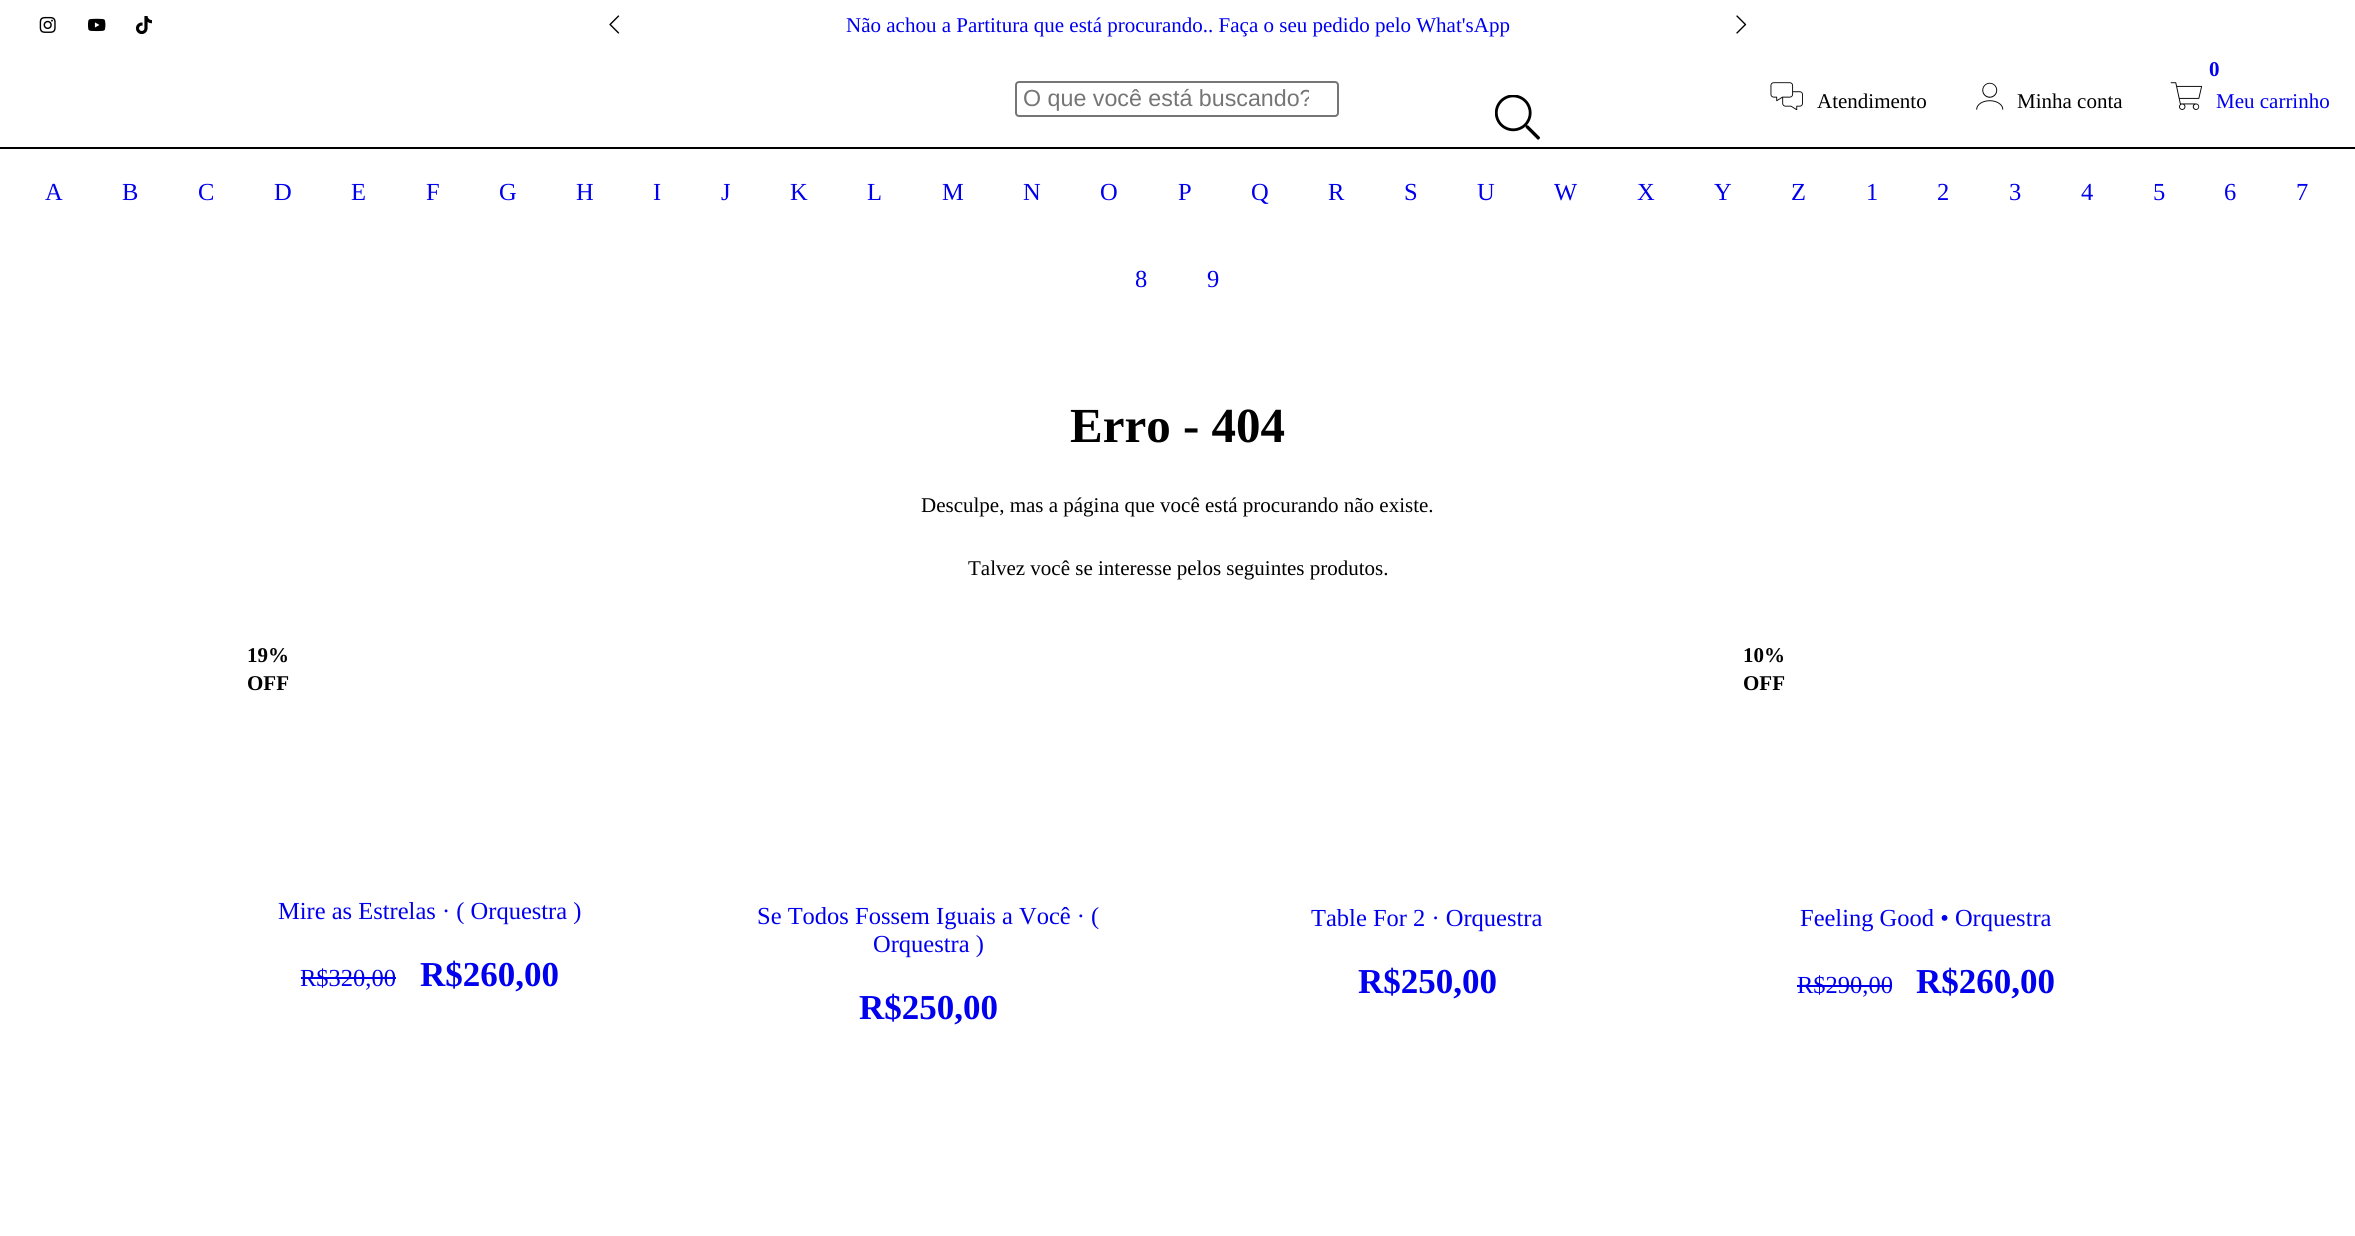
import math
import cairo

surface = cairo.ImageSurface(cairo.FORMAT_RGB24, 2355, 1236)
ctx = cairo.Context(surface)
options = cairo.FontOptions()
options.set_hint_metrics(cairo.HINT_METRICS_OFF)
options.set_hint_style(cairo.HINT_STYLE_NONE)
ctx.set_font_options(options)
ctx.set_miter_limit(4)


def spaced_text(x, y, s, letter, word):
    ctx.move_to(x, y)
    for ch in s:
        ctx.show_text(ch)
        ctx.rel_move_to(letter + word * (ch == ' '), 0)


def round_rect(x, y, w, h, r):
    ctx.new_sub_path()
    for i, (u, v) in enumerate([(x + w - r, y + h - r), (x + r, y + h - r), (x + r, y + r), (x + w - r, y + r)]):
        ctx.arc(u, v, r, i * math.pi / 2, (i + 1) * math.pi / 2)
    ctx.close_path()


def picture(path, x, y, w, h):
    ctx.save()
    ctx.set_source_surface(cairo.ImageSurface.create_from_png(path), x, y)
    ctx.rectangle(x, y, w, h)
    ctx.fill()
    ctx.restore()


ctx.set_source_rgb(1, 1, 1)
ctx.paint()
picture("img1.png", 39, 16, 17, 17)
picture("img2.png", 88, 18, 18, 14)
picture("img3.png", 135, 16, 17, 18)
picture("img4.png", 609, 15, 11, 19)
ctx.select_font_face("Liberation Serif")
ctx.set_font_size(21)
ctx.set_source_rgb(0, 0, 0.933)
ctx.move_to(846, 32)
ctx.show_text("Não achou a Partitura que está procurando.. Faça o seu pedido pelo What'sApp")
picture("img5.png", 1736, 15, 11, 19)
round_rect(1016, 82, 322, 34, 3)
ctx.set_source_rgb(0.463, 0.463, 0.463)
ctx.stroke()
ctx.save()
ctx.rectangle(1022, 86, 287, 26)
ctx.clip()
ctx.select_font_face("Liberation Sans")
ctx.set_font_size(23.25)
ctx.set_source_rgb(0.459, 0.459, 0.459)
ctx.move_to(1023, 106)
ctx.show_text("O que você está buscando?")
ctx.restore()
picture("img6.png", 1495, 95, 45, 45)
picture("img7.png", 1770, 82, 33, 28)
ctx.set_source_rgb(0, 0, 0)
ctx.move_to(1817, 108)
ctx.show_text("Atendimento")
picture("img8.png", 1976, 82, 28, 28)
ctx.move_to(2017, 108)
ctx.show_text("Minha conta")
ctx.select_font_face("Liberation Serif", cairo.FONT_SLANT_NORMAL, cairo.FONT_WEIGHT_BOLD)
ctx.set_source_rgb(0, 0, 0.933)
ctx.move_to(2209, 76)
ctx.show_text("0")
picture("img9.png", 2170, 82, 33, 28)
ctx.select_font_face("Liberation Serif")
ctx.move_to(2216, 108)
ctx.show_text("Meu carrinho")
ctx.set_source_rgb(0, 0, 0)
ctx.rectangle(0, 147, 2355, 2)
ctx.fill()
ctx.set_font_size(24.5)
ctx.set_source_rgb(0, 0, 0.933)
spaced_text(45, 200, "A", 2, 0)
spaced_text(122, 200, "B", 2, 0)
spaced_text(198, 200, "C", 2, 0)
spaced_text(274, 200, "D", 2, 0)
spaced_text(351, 200, "E", 2, 0)
spaced_text(426, 200, "F", 2, 0)
spaced_text(499, 200, "G", 2, 0)
spaced_text(576, 200, "H", 2, 0)
spaced_text(653, 200, "I", 2, 0)
spaced_text(721, 200, "J", 2, 0)
spaced_text(790, 200, "K", 2, 0)
spaced_text(867, 200, "L", 2, 0)
spaced_text(942, 200, "M", 2, 0)
spaced_text(1023, 200, "N", 2, 0)
spaced_text(1100, 200, "O", 2, 0)
spaced_text(1178, 200, "P", 2, 0)
spaced_text(1251, 200, "Q", 2, 0)
spaced_text(1328, 200, "R", 2, 0)
spaced_text(1404, 200, "S", 2, 0)
spaced_text(1477, 200, "U", 2, 0)
spaced_text(1554, 200, "W", 2, 0)
spaced_text(1637, 200, "X", 2, 0)
spaced_text(1714, 200, "Y", 2, 0)
spaced_text(1791, 200, "Z", 2, 0)
spaced_text(1866, 200, "1", 2, 0)
spaced_text(1937, 200, "2", 2, 0)
spaced_text(2009, 200, "3", 2, 0)
spaced_text(2081, 200, "4", 2, 0)
spaced_text(2153, 200, "5", 2, 0)
spaced_text(2224, 200, "6", 2, 0)
spaced_text(2296, 200, "7", 2, 0)
spaced_text(1135, 287, "8", 2, 0)
spaced_text(1207, 287, "9", 2, 0)
ctx.select_font_face("Liberation Serif", cairo.FONT_SLANT_NORMAL, cairo.FONT_WEIGHT_BOLD)
ctx.set_font_size(49)
ctx.set_source_rgb(0, 0, 0)
ctx.move_to(1070, 442)
ctx.show_text("Erro - 404")
ctx.select_font_face("Liberation Serif")
ctx.set_font_size(21)
ctx.move_to(921, 512)
ctx.show_text("Desculpe, mas a página que você está procurando não existe.")
ctx.move_to(968, 575)
ctx.show_text("Talvez você se interesse pelos seguintes produtos.")
ctx.select_font_face("Liberation Serif", cairo.FONT_SLANT_NORMAL, cairo.FONT_WEIGHT_BOLD)
ctx.move_to(247, 662)
ctx.show_text("19%")
ctx.move_to(247, 690)
ctx.show_text("OFF")
ctx.select_font_face("Liberation Serif")
ctx.set_font_size(24.5)
ctx.set_source_rgb(0, 0, 0.933)
ctx.move_to(278, 919)
ctx.show_text("Mire as Estrelas · ( Orquestra )")
ctx.move_to(300, 986)
ctx.show_text("R$320,00")
ctx.rectangle(301, 977, 95, 2)
ctx.fill()
ctx.select_font_face("Liberation Serif", cairo.FONT_SLANT_NORMAL, cairo.FONT_WEIGHT_BOLD)
ctx.set_font_size(35)
ctx.move_to(420, 986)
ctx.show_text("R$260,00")
ctx.select_font_face("Liberation Serif")
ctx.set_font_size(24.5)
ctx.move_to(757, 924)
ctx.show_text("Se Todos Fossem Iguais a Você · (")
ctx.move_to(873, 952)
ctx.show_text("Orquestra )")
ctx.select_font_face("Liberation Serif", cairo.FONT_SLANT_NORMAL, cairo.FONT_WEIGHT_BOLD)
ctx.set_font_size(35)
ctx.move_to(859, 1019)
ctx.show_text("R$250,00")
ctx.select_font_face("Liberation Serif")
ctx.set_font_size(24.5)
ctx.move_to(1311, 926)
ctx.show_text("Table For 2 · Orquestra")
ctx.select_font_face("Liberation Serif", cairo.FONT_SLANT_NORMAL, cairo.FONT_WEIGHT_BOLD)
ctx.set_font_size(35)
ctx.move_to(1358, 993)
ctx.show_text("R$250,00")
ctx.set_font_size(21)
ctx.set_source_rgb(0, 0, 0)
ctx.move_to(1743, 662)
ctx.show_text("10%")
ctx.move_to(1743, 690)
ctx.show_text("OFF")
ctx.select_font_face("Liberation Serif")
ctx.set_font_size(24.5)
ctx.set_source_rgb(0, 0, 0.933)
ctx.move_to(1800, 926)
ctx.show_text("Feeling Good • Orquestra")
ctx.move_to(1797, 993)
ctx.show_text("R$290,00")
ctx.rectangle(1797, 985, 95, 2)
ctx.fill()
ctx.select_font_face("Liberation Serif", cairo.FONT_SLANT_NORMAL, cairo.FONT_WEIGHT_BOLD)
ctx.set_font_size(35)
ctx.move_to(1916, 993)
ctx.show_text("R$260,00")
surface.write_to_png("page.png")
